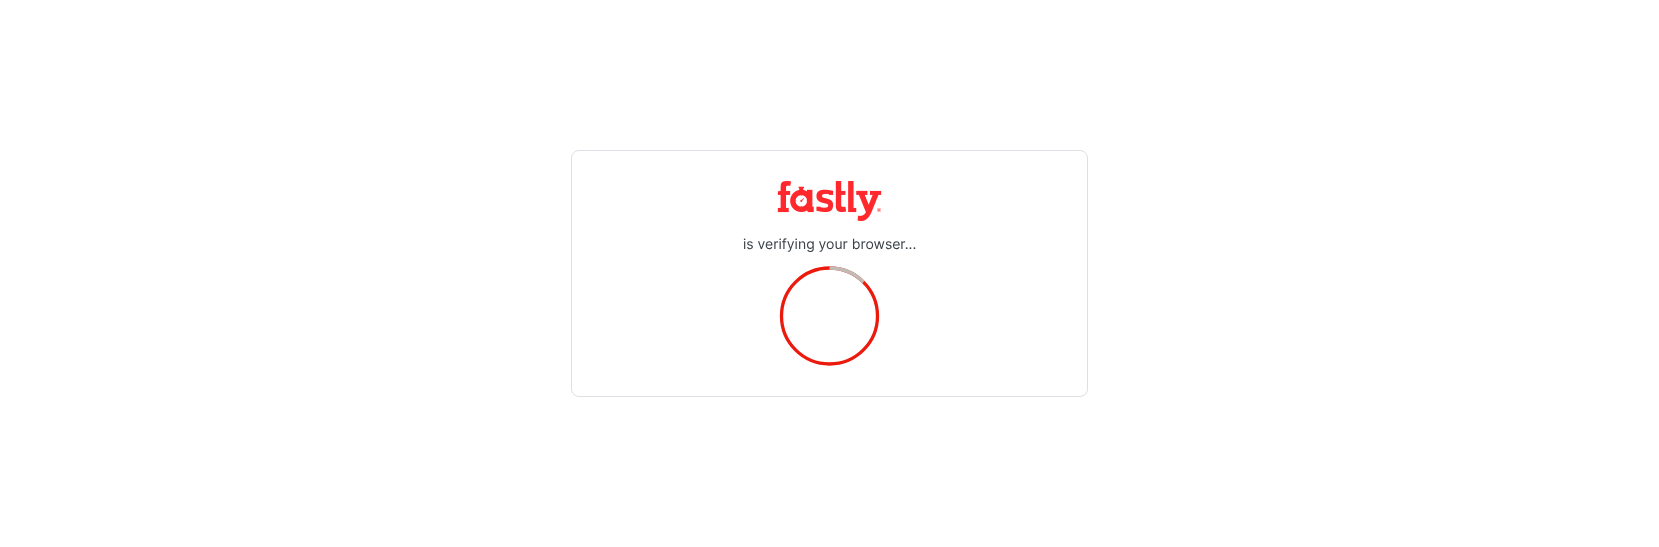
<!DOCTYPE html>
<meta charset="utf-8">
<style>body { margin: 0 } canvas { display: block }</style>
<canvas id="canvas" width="1659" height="547"></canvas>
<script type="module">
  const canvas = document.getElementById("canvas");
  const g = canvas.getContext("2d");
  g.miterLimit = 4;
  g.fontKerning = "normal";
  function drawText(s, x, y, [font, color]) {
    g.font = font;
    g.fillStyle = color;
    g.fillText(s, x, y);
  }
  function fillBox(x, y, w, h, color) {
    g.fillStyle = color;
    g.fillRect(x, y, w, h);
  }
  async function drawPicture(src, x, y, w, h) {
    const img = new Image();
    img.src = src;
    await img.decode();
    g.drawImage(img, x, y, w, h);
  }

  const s1 = ["14px Inter", "#3A424A"];

  fillBox(0, 0, 1659, 547, "#FFFFFF");
  g.beginPath();
  g.roundRect(571.5, 150.5, 516, 246, 7.5);
  g.strokeStyle = "#DCE0E4";
  g.stroke();
  await drawPicture("pic1.png", 777, 181, 105, 40);
  drawText("is verifying your browser...", 743, 249, s1);
  g.beginPath();
  g.moveTo(781.5, 316);
  g.bezierCurveTo(781.5, 289.5, 803, 268, 829.5, 268);
  g.bezierCurveTo(856, 268, 877.5, 289.5, 877.5, 316);
  g.bezierCurveTo(877.5, 342.5, 856, 364, 829.5, 364);
  g.bezierCurveTo(803, 364, 781.5, 342.5, 781.5, 316);
  g.closePath();
  g.strokeStyle = "#EB1A0C";
  g.lineWidth = 3.3;
  g.stroke();
  g.beginPath();
  g.moveTo(863.5, 282);
  g.bezierCurveTo(854.5, 273, 842, 268, 829.5, 268);
  g.strokeStyle = "#C2BAB5";
  g.stroke();
</script>
